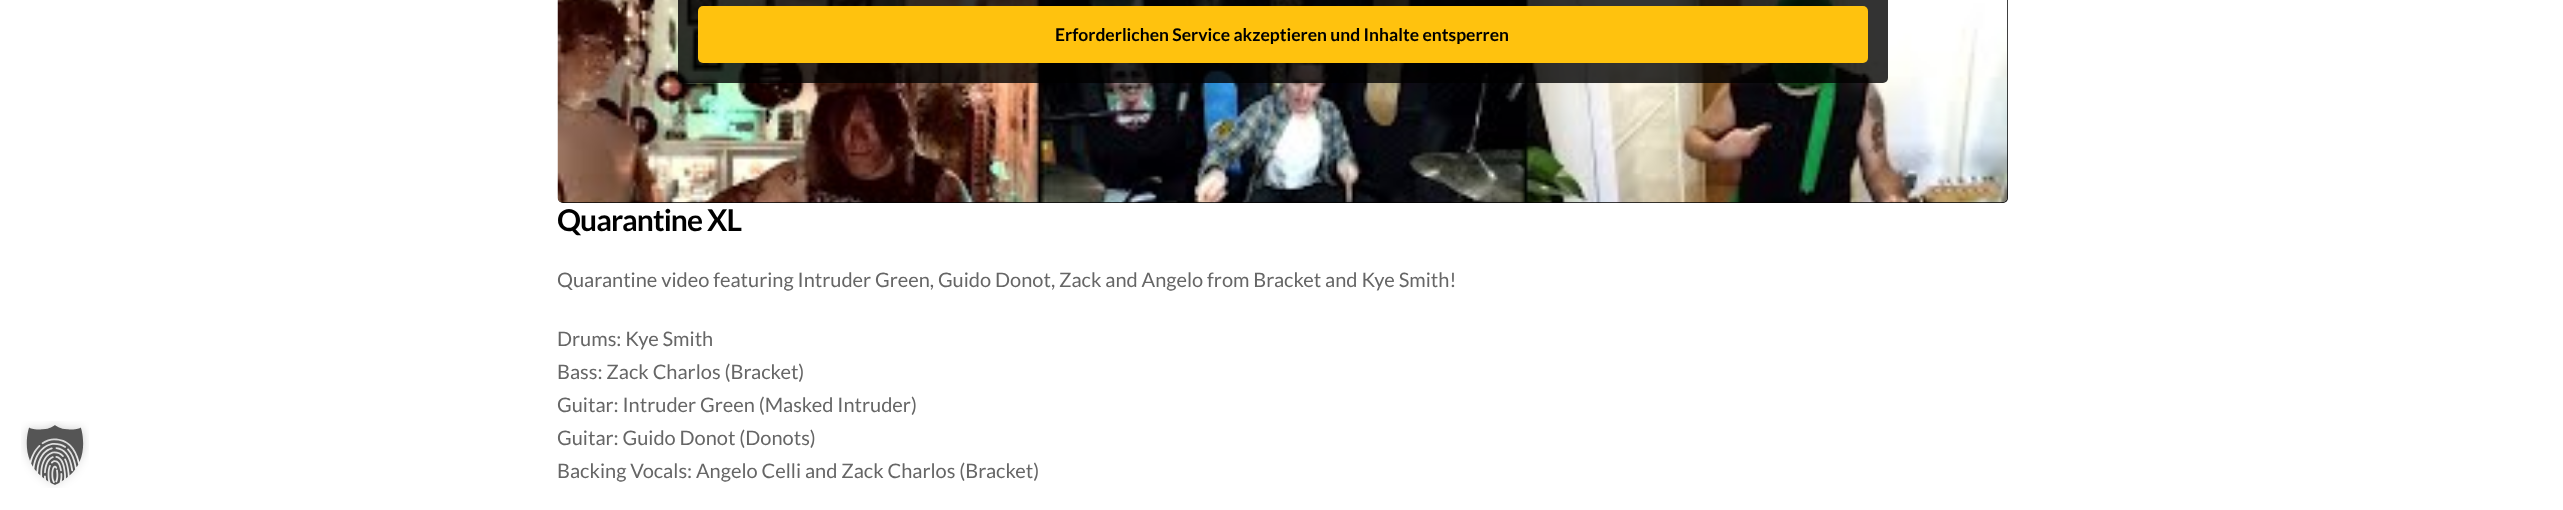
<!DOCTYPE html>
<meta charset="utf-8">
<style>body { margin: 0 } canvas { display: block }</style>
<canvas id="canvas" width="2563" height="510"></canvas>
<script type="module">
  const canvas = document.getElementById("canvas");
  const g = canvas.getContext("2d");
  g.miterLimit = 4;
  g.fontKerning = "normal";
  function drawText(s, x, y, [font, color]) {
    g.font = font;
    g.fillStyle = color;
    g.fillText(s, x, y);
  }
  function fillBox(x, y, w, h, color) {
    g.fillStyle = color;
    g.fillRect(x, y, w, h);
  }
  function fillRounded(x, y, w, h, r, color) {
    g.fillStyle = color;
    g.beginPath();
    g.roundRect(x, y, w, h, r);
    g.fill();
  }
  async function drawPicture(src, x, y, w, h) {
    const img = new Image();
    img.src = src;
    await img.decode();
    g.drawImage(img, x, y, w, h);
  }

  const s1 = ["bold 17.5px Lato", "#000000"];
  const s2 = ["bold 30px Lato", "#000000"];
  const s3 = ["20px Lato", "#666666"];

  fillBox(0, 0, 2563, 510, "#FFFFFF");
  await drawPicture("pic1.png", 21, 421, 68, 67);
  fillRounded(558, -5, 1450, 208, 5, "#000000");
  await drawPicture("pic2.png", 557, 0, 1451, 203);
  fillRounded(678, -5, 1210, 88, 5, "rgba(0, 0, 0, 0.8)");
  fillRounded(698, 6, 1170, 57, 5, "#FFC20E");
  drawText("Erforderlichen Service akzeptieren und Inhalte entsperren", 1055, 41, s1);
  g.letterSpacing = "-0.9px";
  drawText("Quarantine XL", 557, 231, s2);
  g.letterSpacing = "0px";
  drawText("Quarantine video featuring Intruder Green, Guido Donot, Zack and Angelo from Bracket and Kye Smith!", 557, 287, s3);
  drawText("Drums: Kye Smith", 557, 346, s3);
  drawText("Bass: Zack Charlos (Bracket)", 557, 379, s3);
  drawText("Guitar: Intruder Green (Masked Intruder)", 557, 412, s3);
  drawText("Guitar: Guido Donot (Donots)", 557, 445, s3);
  drawText("Backing Vocals: Angelo Celli and Zack Charlos (Bracket)", 557, 478, s3);
</script>
